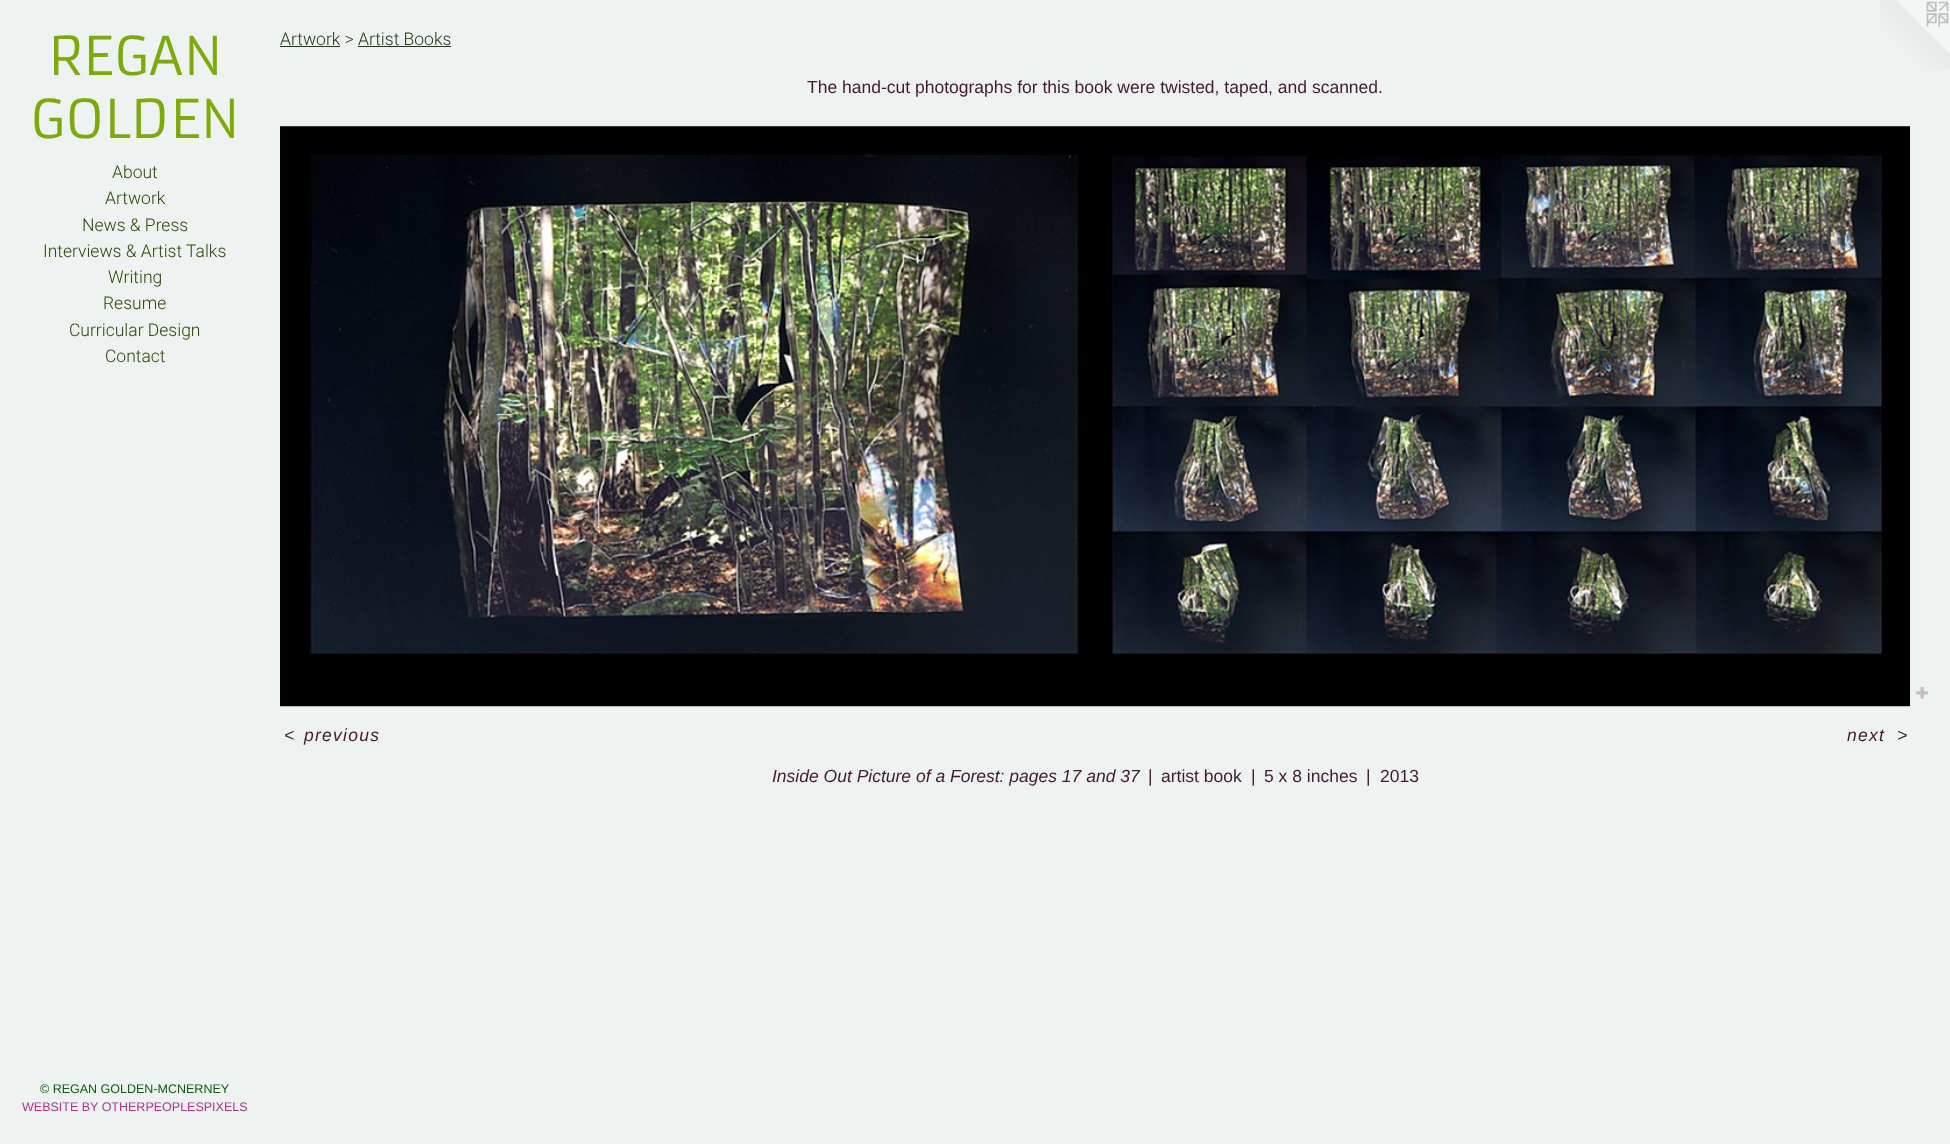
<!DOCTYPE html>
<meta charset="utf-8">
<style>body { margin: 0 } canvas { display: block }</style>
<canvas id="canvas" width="1950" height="1144"></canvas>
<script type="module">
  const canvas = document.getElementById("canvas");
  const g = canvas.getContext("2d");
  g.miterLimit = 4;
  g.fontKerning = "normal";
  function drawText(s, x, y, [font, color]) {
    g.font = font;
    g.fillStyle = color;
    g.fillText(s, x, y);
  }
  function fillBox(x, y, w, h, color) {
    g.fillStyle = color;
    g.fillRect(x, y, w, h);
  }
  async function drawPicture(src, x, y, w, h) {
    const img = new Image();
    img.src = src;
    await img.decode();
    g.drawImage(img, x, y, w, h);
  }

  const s1 = ["52.5px Armata", "#7CAA09"];
  const s2 = ["300 17.5px Roboto", "#2E4607"];
  const s3 = ["12.5px Liberation Sans", "#095D0F"];
  const s4 = ["12.5px Liberation Sans", "#AB3791"];
  const s5 = ["300 17.5px Roboto", "#273815"];
  const s6 = ["17.5px Liberation Sans", "#421A32"];
  const s7 = ["italic 17.5px Liberation Sans", "#421A32"];

  fillBox(0, 0, 1950, 1144, "#EEF2F0");
  drawText("REGAN", 48, 75, s1);
  drawText("GOLDEN", 30, 138, s1);
  drawText("About", 112, 178, s2);
  drawText("Artwork", 105, 204, s2);
  drawText("News & Press", 82, 231, s2);
  drawText("Interviews & Artist Talks", 43, 257, s2);
  drawText("Writing", 108, 283, s2);
  drawText("Resume", 103, 309, s2);
  drawText("Curricular Design", 69, 336, s2);
  drawText("Contact", 105, 362, s2);
  drawText("© REGAN GOLDEN-MCNERNEY", 40, 1093, s3);
  drawText("WEBSITE BY OTHERPEOPLESPIXELS", 22, 1111, s4);
  drawText("Artwork > Artist Books", 280, 45, s5);
  fillBox(280, 46, 60, 1, "#273815");
  fillBox(358, 46, 93, 1, "#273815");
  drawText("The hand-cut photographs for this book were twisted, taped, and scanned.", 807, 93, s6);
  await drawPicture("pic1.png", 280, 126, 1630, 581);
  await drawPicture("pic2.png", 1916, 687, 12, 12);
  g.letterSpacing = "1.25px";
  drawText("<", 284, 741, s7);
  drawText("previous", 304, 741, s7);
  drawText("next", 1847, 741, s7);
  drawText(">", 1897, 741, s7);
  g.letterSpacing = "0px";
  drawText("Inside Out Picture of a Forest: pages 17 and 37", 772, 782, s7);
  drawText("|", 1148, 782, s6);
  drawText("artist book", 1161, 782, s6);
  drawText("|", 1251, 782, s6);
  drawText("5 x 8 inches", 1264, 782, s6);
  drawText("|", 1366, 782, s6);
  drawText("2013", 1380, 782, s6);
  await drawPicture("pic3.png", 1880, 0, 70, 70);
</script>
